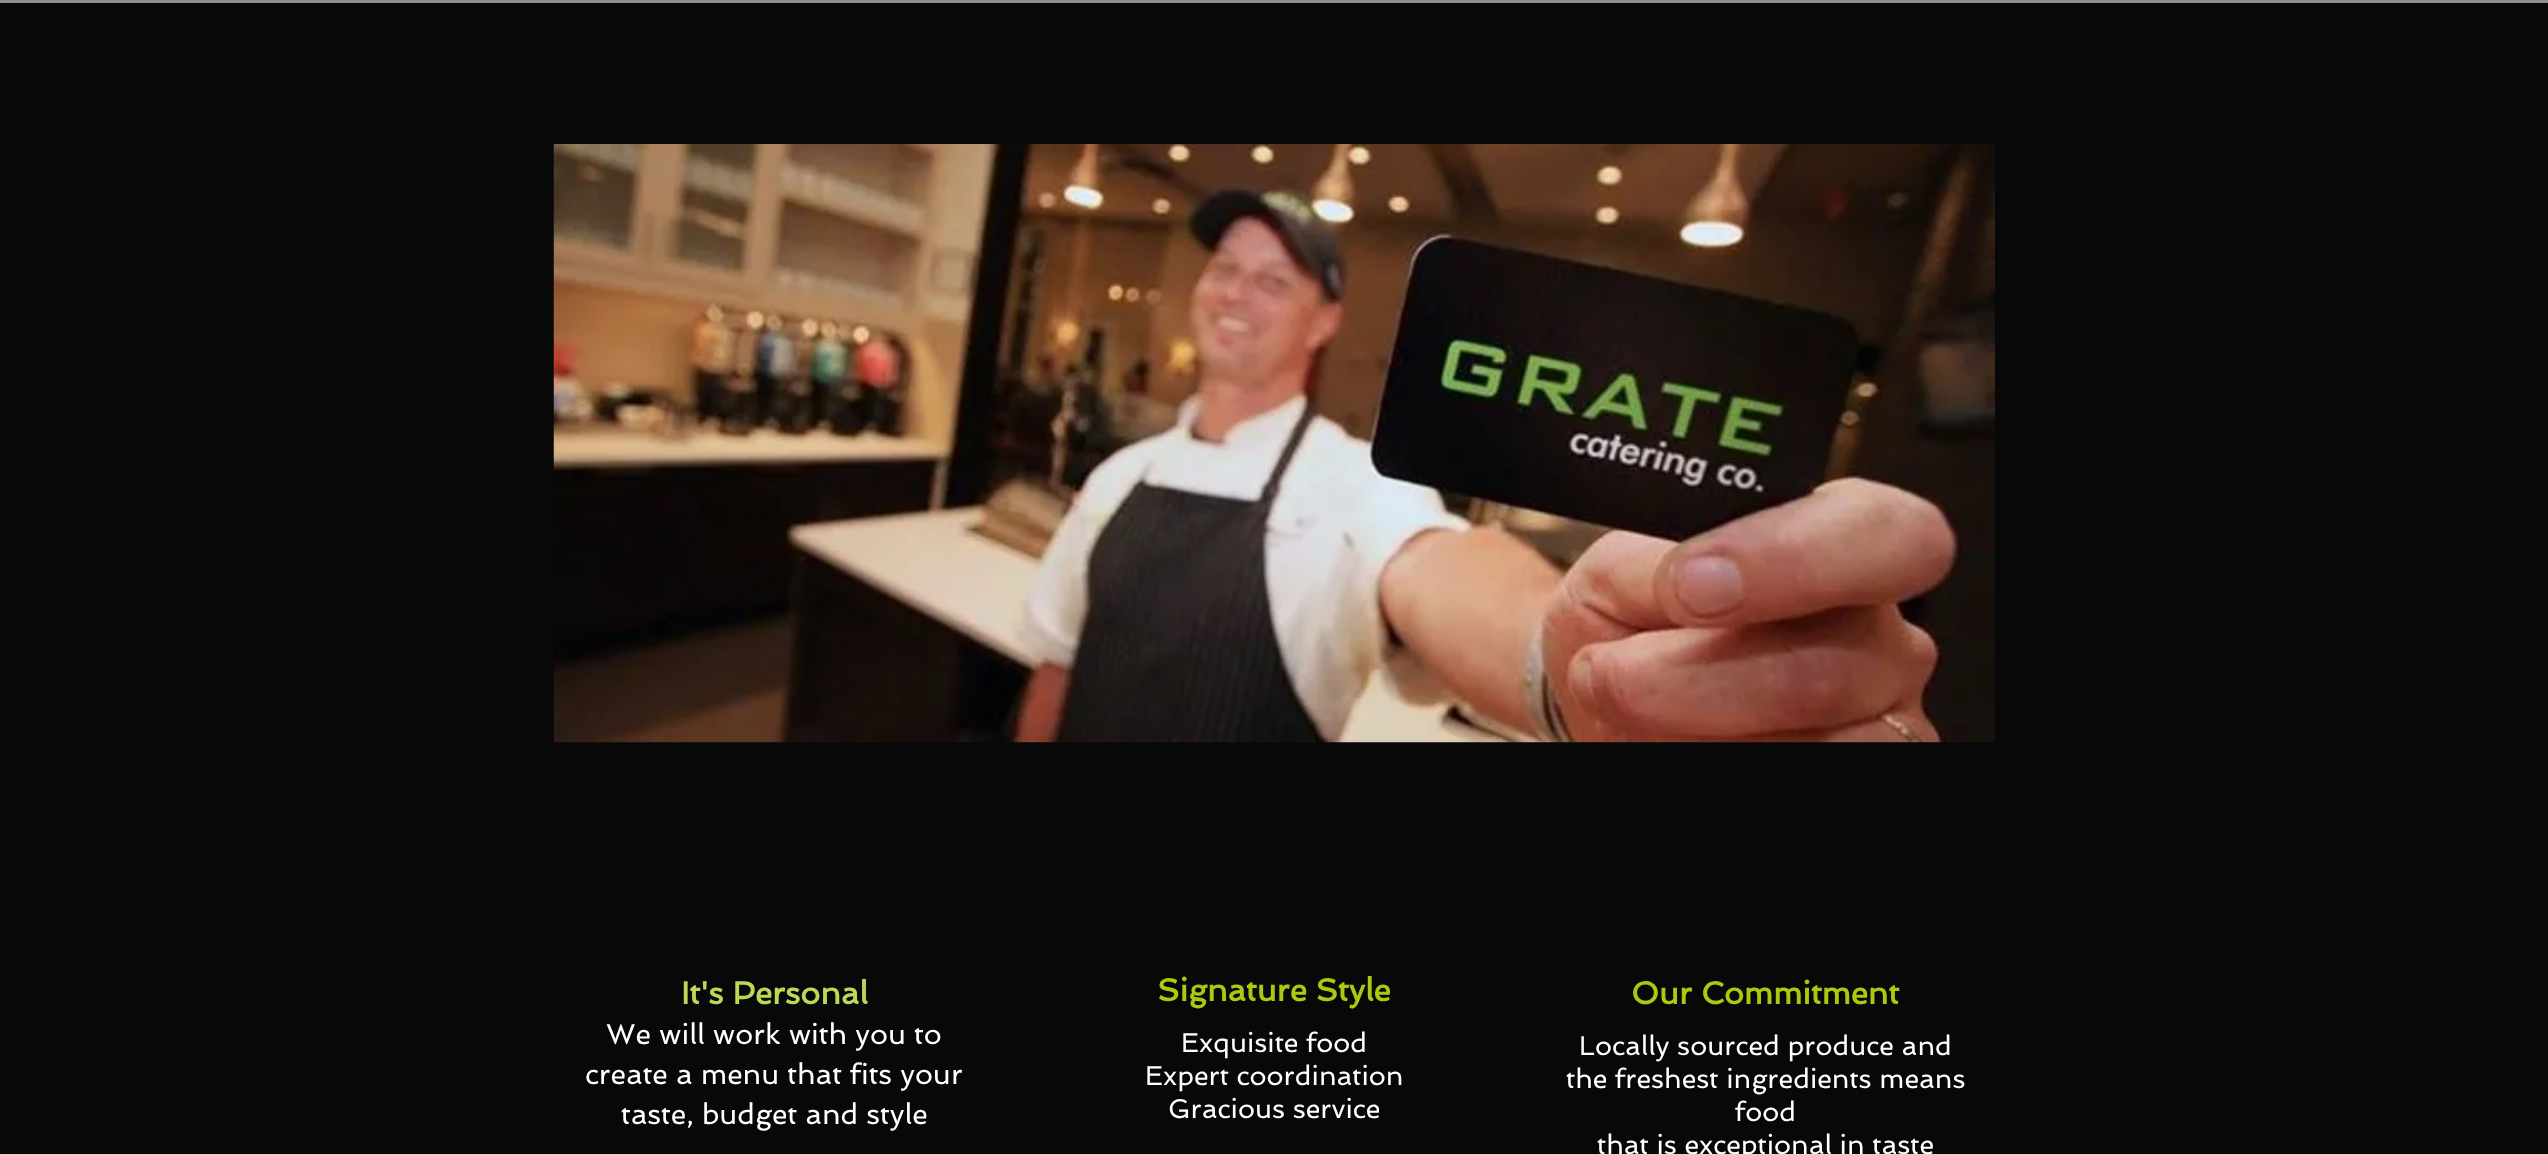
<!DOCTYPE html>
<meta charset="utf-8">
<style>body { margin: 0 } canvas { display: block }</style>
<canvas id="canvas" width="2548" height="1154"></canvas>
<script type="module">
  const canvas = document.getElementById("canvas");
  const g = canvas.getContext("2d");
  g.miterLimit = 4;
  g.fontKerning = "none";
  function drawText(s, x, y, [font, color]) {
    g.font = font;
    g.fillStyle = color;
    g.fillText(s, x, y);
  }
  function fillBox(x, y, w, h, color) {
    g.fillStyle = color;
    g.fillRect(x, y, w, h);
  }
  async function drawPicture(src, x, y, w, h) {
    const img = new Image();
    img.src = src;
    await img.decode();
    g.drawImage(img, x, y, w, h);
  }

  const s1 = ["bold 31.5px Spinnaker", "#BADA55"];
  const s2 = ["28.5px Spinnaker", "#FFFFFF"];
  const s3 = ["bold 31.5px Spinnaker", "#AACA0E"];
  const s4 = ["27px Spinnaker", "#FFFFFF"];

  fillBox(0, 0, 2548, 1154, "#080808");
  fillBox(0, 0, 2548, 3, "#918C8C");
  await drawPicture("pic1.png", 553, 144, 1442, 599);
  drawText("It's Personal", 681, 1004, s1);
  drawText("We will work with you to", 606, 1044, s2);
  drawText("create a menu that fits your", 585, 1084, s2);
  drawText("taste, budget and style", 621, 1124, s2);
  drawText("Signature Style", 1157, 1001, s3);
  drawText("Exquisite food", 1181, 1052, s4);
  drawText("Expert coordination", 1145, 1085, s4);
  drawText("Gracious service", 1168, 1118, s4);
  drawText("Our Commitment", 1631, 1004, s3);
  drawText("Locally sourced produce and", 1579, 1055, s4);
  drawText("the freshest ingredients means", 1566, 1088, s4);
  drawText("food", 1735, 1121, s4);
  drawText("that is exceptional in taste", 1597, 1154, s4);
</script>
